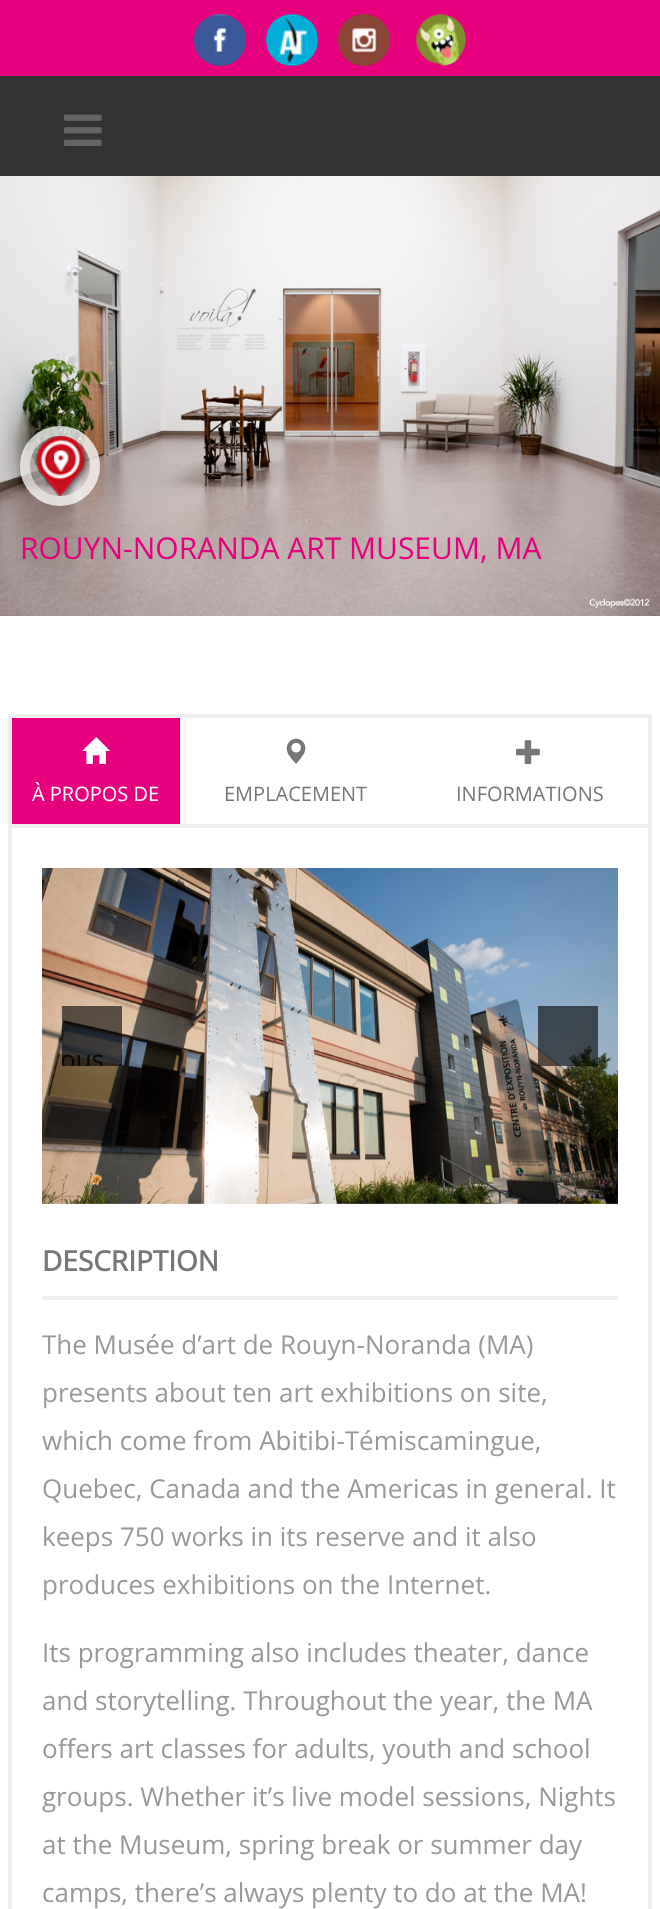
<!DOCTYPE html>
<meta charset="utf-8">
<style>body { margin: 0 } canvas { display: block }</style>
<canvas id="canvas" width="660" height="1909"></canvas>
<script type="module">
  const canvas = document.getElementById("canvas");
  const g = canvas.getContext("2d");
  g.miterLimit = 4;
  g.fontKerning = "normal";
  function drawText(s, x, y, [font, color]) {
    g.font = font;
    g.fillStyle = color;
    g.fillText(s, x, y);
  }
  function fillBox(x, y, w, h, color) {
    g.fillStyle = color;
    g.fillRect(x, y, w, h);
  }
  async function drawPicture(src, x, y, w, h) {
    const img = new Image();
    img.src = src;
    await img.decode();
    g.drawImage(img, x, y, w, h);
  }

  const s1 = ["30px Open Sans", "#E6007E"];
  const s2 = ["20px Open Sans", "#FFFFFF"];
  const s3 = ["20px Open Sans", "#777777"];
  const s4 = ["26px Open Sans", "#090806"];
  const s5 = ["bold 28px Open Sans", "#777777"];
  const s6 = ["26px Open Sans", "#999999"];

  fillBox(0, 0, 660, 1909, "#FFFFFF");
  fillBox(0, 0, 660, 76, "#E6007E");
  await drawPicture("pic1.png", 194, 14, 52, 52);
  await drawPicture("pic2.png", 266, 14, 52, 52);
  await drawPicture("pic3.png", 338, 14, 52, 52);
  await drawPicture("pic4.png", 416, 14, 50, 52);
  fillBox(0, 76, 660, 100, "#333333");
  await drawPicture("pic5.png", 64, 114, 38, 32);
  await drawPicture("pic6.png", 0, 176, 660, 440);
  g.fillStyle = "rgba(255, 255, 255, 0.5)";
  g.beginPath();
  g.arc(60, 466, 40, 0, Math.PI * 2);
  g.fill();
  g.beginPath();
  g.arc(60, 466, 35, 0, Math.PI * 2);
  g.strokeStyle = "rgba(255, 255, 255, 0.5)";
  g.lineWidth = 10;
  g.stroke();
  await drawPicture("pic7.png", 35, 436, 55, 60);
  drawText("ROUYN-NORANDA ART MUSEUM, MA", 20, 559, s1);
  g.strokeStyle = "#EEEEEE";
  g.lineWidth = 4;
  g.strokeRect(10, 716, 640, 110);
  fillBox(12, 718, 168, 106, "#E6007E");
  await drawPicture("pic8.png", 82, 737, 28, 27);
  drawText("À PROPOS DE", 32, 801, s2);
  await drawPicture("pic9.png", 286, 738, 20, 26);
  drawText("EMPLACEMENT", 224, 801, s3);
  await drawPicture("pic10.png", 516, 740, 24, 24);
  drawText("INFORMATIONS", 456, 801, s3);
  fillBox(648, 828, 4, 1081, "#EEEEEE");
  fillBox(8, 828, 4, 1081, "#EEEEEE");
  await drawPicture("pic11.png", 42, 868, 576, 336);
  fillBox(62, 1006, 60, 60, "rgba(0, 0, 0, 0.6)");
  g.save();
  g.beginPath();
  g.rect(62, 1006, 60, 60);
  g.clip();
  drawText("ous", 60, 1069, s4);
  g.restore();
  fillBox(538, 1006, 60, 60, "rgba(0, 0, 0, 0.6)");
  fillBox(42, 1296, 576, 4, "#EEEEEE");
  drawText("DESCRIPTION", 42, 1271, s5);
  drawText("The Musée d’art de Rouyn-Noranda (MA)", 42, 1354, s6);
  drawText("presents about ten art exhibitions on site,", 42, 1402, s6);
  drawText("which come from Abitibi-Témiscamingue,", 42, 1450, s6);
  drawText("Quebec, Canada and the Americas in general. It", 42, 1498, s6);
  drawText("keeps 750 works in its reserve and it also", 42, 1546, s6);
  drawText("produces exhibitions on the Internet.", 42, 1594, s6);
  drawText("Its programming also includes theater, dance", 42, 1662, s6);
  drawText("and storytelling. Throughout the year, the MA", 42, 1710, s6);
  drawText("offers art classes for adults, youth and school", 42, 1758, s6);
  drawText("groups. Whether it’s live model sessions, Nights", 42, 1806, s6);
  drawText("at the Museum, spring break or summer day", 42, 1854, s6);
  drawText("camps, there’s always plenty to do at the MA!", 42, 1902, s6);
</script>
